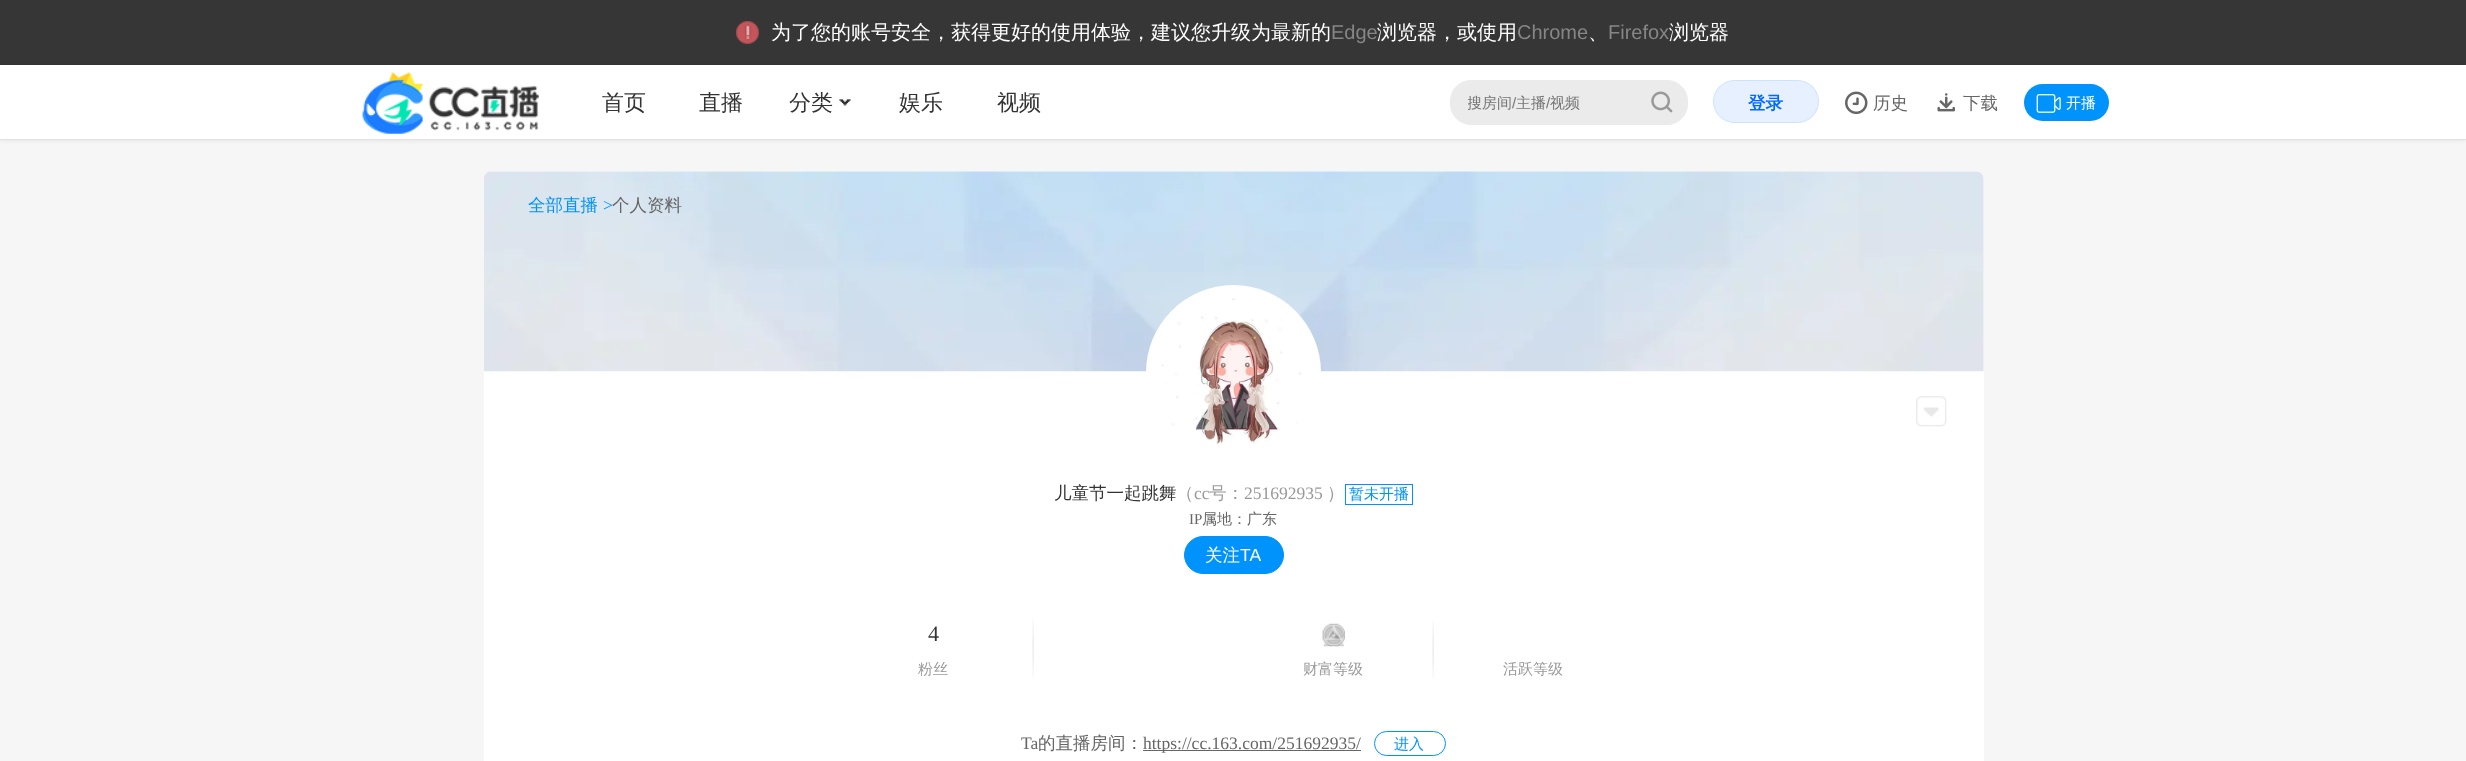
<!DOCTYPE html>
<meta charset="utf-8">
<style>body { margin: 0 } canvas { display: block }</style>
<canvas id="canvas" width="2466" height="761"></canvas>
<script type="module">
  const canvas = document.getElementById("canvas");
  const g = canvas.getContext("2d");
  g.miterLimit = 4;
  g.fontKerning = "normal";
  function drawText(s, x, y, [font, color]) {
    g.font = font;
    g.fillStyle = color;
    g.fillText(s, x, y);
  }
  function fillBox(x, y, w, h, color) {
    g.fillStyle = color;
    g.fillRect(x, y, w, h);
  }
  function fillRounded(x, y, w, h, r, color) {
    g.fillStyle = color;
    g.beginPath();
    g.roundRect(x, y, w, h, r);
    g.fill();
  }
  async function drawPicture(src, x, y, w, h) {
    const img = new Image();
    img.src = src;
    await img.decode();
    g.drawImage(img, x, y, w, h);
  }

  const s1 = ["500 20px WenQuanYi Zen Hei", "#FFFFFF"];
  const s2 = ["20px Liberation Sans", "#868686"];
  const s3 = ["500 22px WenQuanYi Zen Hei", "#333333"];
  const s4 = ["500 15px WenQuanYi Zen Hei", "#757575"];
  const s5 = ["15px Liberation Sans", "#757575"];
  const s6 = ["bold 17.5px WenQuanYi Zen Hei", "#0069FF"];
  const s7 = ["500 17.5px WenQuanYi Zen Hei", "#666666"];
  const s8 = ["500 15px WenQuanYi Zen Hei", "#FFFFFF"];
  const s9 = ["500 17.5px WenQuanYi Zen Hei", "#0093FB"];
  const s10 = ["17.5px Liberation Serif", "#0093FB"];
  const s11 = ["500 17.5px WenQuanYi Zen Hei", "#333333"];
  const s12 = ["500 17.5px WenQuanYi Zen Hei", "#999999"];
  const s13 = ["17.5px Liberation Serif", "#999999"];
  const s14 = ["500 15px WenQuanYi Zen Hei", "#0093FB"];
  const s15 = ["15px Liberation Serif", "#666666"];
  const s16 = ["500 15px WenQuanYi Zen Hei", "#666666"];
  const s17 = ["500 17.5px WenQuanYi Zen Hei", "#FFFFFF"];
  const s18 = ["17.5px Liberation Sans", "#FFFFFF"];
  const s19 = ["22px Liberation Serif", "#333333"];
  const s20 = ["500 15px WenQuanYi Zen Hei", "#999999"];
  const s21 = ["17.5px Liberation Serif", "#666666"];

  fillBox(0, 0, 2466, 761, "#F6F6F6");
  fillBox(0, 0, 2466, 65, "#363636");
  await drawPicture("pic1.png", 736, 21, 23, 23);
  drawText("为了您的账号安全，获得更好的使用体验，建议您升级为最新的", 771, 39, s1);
  drawText("Edge", 1331, 39, s2);
  drawText("浏览器，或使用", 1377, 39, s1);
  drawText("Chrome", 1517, 39, s2);
  drawText("、", 1588, 39, s1);
  drawText("Firefox", 1608, 39, s2);
  drawText("浏览器", 1669, 39, s1);
  g.fillStyle = "rgba(0, 0, 0, 0.09)";
  g.filter = "blur(2.5px)";
  g.beginPath();
  g.rect(0, 65, 2466, 75);
  g.fill();
  g.filter = "none";
  fillBox(0, 65, 2466, 74, "#FFFFFF");
  fillBox(0, 139, 2466, 1, "#E2E1E2");
  await drawPicture("pic2.png", 362, 72, 177, 62);
  drawText("首页", 602, 110, s3);
  drawText("直播", 699, 110, s3);
  drawText("分类", 789, 110, s3);
  await drawPicture("pic3.png", 839, 99, 12, 7);
  drawText("娱乐", 899, 110, s3);
  drawText("视频", 997, 110, s3);
  g.fillStyle = "#ECEBEB";
  g.beginPath();
  g.roundRect(1450.5, 80.5, 237, 44, 20.5);
  g.fill();
  g.strokeStyle = "#ECEBEB";
  g.stroke();
  g.save();
  g.beginPath();
  g.rect(1468, 93, 175, 21);
  g.clip();
  drawText("搜房间", 1467, 108, s4);
  g.restore();
  drawText("/", 1512, 108, s5);
  drawText("主播", 1516, 108, s4);
  drawText("/", 1546, 108, s5);
  drawText("视频", 1550, 108, s4);
  await drawPicture("pic4.png", 1651, 91, 22, 22);
  fillRounded(1713, 80, 106, 43, 21.5, "#E6F0FF");
  g.beginPath();
  g.roundRect(1713.5, 80.5, 105, 42, 21);
  g.strokeStyle = "rgba(0, 105, 255, 0.1)";
  g.stroke();
  drawText("登录", 1748, 109, s6);
  await drawPicture("pic5.png", 1845, 91, 23, 24);
  drawText("历史", 1873, 109, s7);
  await drawPicture("pic6.png", 1937, 93, 18, 19);
  drawText("下载", 1963, 109, s7);
  fillRounded(2024, 84, 85, 37, 18.5, "#0093FB");
  await drawPicture("pic7.png", 2036, 94, 25, 19);
  drawText("开播", 2066, 108, s8);
  fillRounded(484, 171, 1500, 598, 8, "#FFFFFF");
  await drawPicture("pic8.png", 484, 171, 1500, 201);
  drawText("全部直播", 528, 211, s9);
  drawText(">", 603, 211, s10);
  drawText("个人资料", 612, 211, s7);
  await drawPicture("pic9.png", 1916, 396, 31, 31);
  g.fillStyle = "#FFFFFF";
  g.beginPath();
  g.arc(1233.5, 372.5, 87.5, 0, Math.PI * 2);
  g.fill();
  await drawPicture("pic10.png", 1161, 298, 141, 147);
  drawText("儿童节一起跳舞", 1054, 499, s11);
  drawText("（", 1176, 499, s12);
  drawText("cc", 1194, 499, s13);
  drawText("号：", 1209, 499, s12);
  drawText("251692935", 1244, 499, s13);
  drawText("）", 1327, 499, s12);
  g.strokeStyle = "#0093FB";
  g.strokeRect(1345.5, 484.5, 67, 20);
  drawText("暂未开播", 1349, 499, s14);
  drawText("IP", 1189, 524, s15);
  drawText("属地：广东", 1202, 524, s16);
  g.fillStyle = "#0093FB";
  g.beginPath();
  g.roundRect(1184.5, 536.5, 99, 37, 18.5);
  g.fill();
  g.stroke();
  drawText("关注", 1205, 561, s17);
  drawText("TA", 1240, 561, s18);
  await drawPicture("pic11.png", 1032, 618, 2, 61);
  drawText("4", 928, 641, s19);
  drawText("粉丝", 918, 674, s20);
  await drawPicture("pic12.png", 1432, 621, 2, 57);
  await drawPicture("pic13.png", 1322, 623, 23, 24);
  drawText("财富等级", 1303, 674, s20);
  drawText("活跃等级", 1503, 674, s20);
  drawText("Ta", 1021, 749, s21);
  drawText("的直播房间：", 1038, 749, s7);
  fillBox(1143, 750, 218, 1, "#666666");
  drawText("https://cc.163.com/251692935/", 1143, 749, s21);
  g.beginPath();
  g.roundRect(1374.5, 731.5, 71, 24, 12);
  g.stroke();
  drawText("进入", 1394, 749, s14);
</script>
